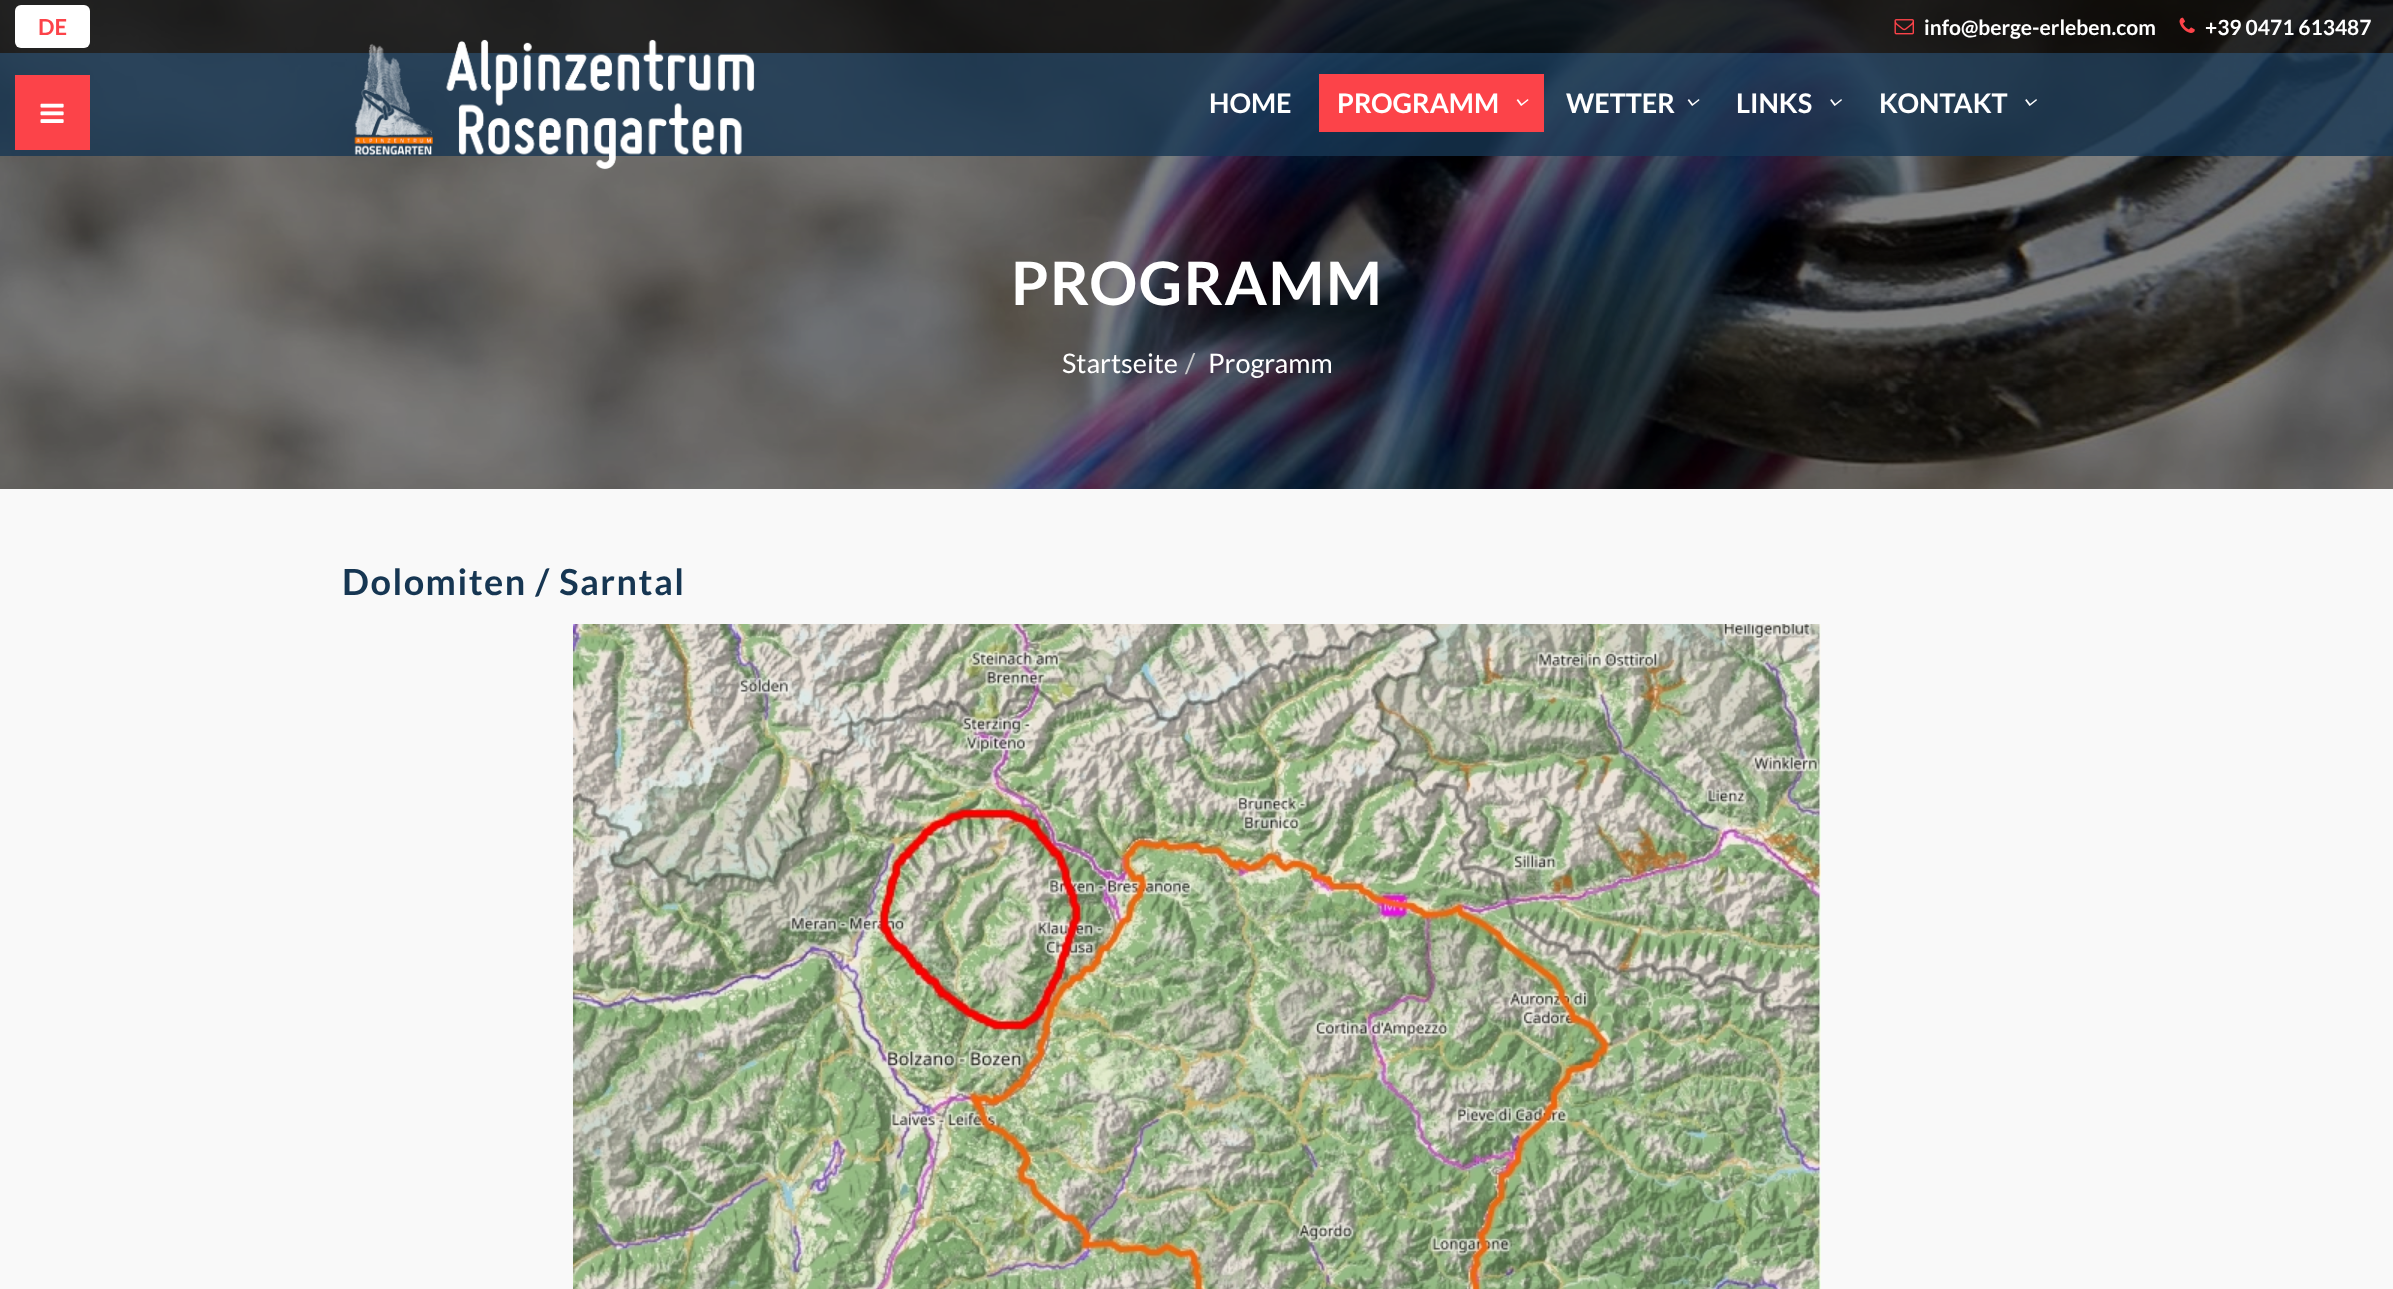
<!DOCTYPE html>
<meta charset="utf-8">
<style>body { margin: 0 } canvas { display: block }</style>
<canvas id="canvas" width="2393" height="1289"></canvas>
<script type="module">
  const canvas = document.getElementById("canvas");
  const g = canvas.getContext("2d");
  g.miterLimit = 4;
  g.fontKerning = "normal";
  function drawText(s, x, y, [font, color]) {
    g.font = font;
    g.fillStyle = color;
    g.fillText(s, x, y);
  }
  function fillBox(x, y, w, h, color) {
    g.fillStyle = color;
    g.fillRect(x, y, w, h);
  }
  function fillRounded(x, y, w, h, r, color) {
    g.fillStyle = color;
    g.beginPath();
    g.roundRect(x, y, w, h, r);
    g.fill();
  }
  async function drawPicture(src, x, y, w, h) {
    const img = new Image();
    img.src = src;
    await img.decode();
    g.drawImage(img, x, y, w, h);
  }

  const s1 = ["bold 22px Lato", "#FC4349"];
  const s2 = ["bold 21px Lato", "#FFFFFF"];
  const s3 = ["bold 27px Lato", "#FFFFFF"];
  const s4 = ["bold 60px Lato", "#FFFFFF"];
  const s5 = ["27px Lato", "#FFFFFF"];
  const s6 = ["27px Lato", "#CCCCCC"];
  const s7 = ["bold 36px Lato", "#163652"];

  fillBox(0, 0, 2393, 1289, "#F9F9F9");
  await drawPicture("pic9.png", 0, 0, 2393, 489);
  fillBox(0, 0, 2393, 53, "rgba(0, 0, 0, 0.7)");
  fillRounded(15, 5, 75, 43, 6, "#FFFFFF");
  drawText("DE", 38, 35, s1);
  await drawPicture("pic1.png", 1894, 19, 20, 16);
  drawText("info@berge-erleben.com", 1924, 35, s2);
  await drawPicture("pic2.png", 2179, 17, 16, 16);
  drawText("+39 0471 613487", 2205, 35, s2);
  fillBox(0, 53, 2393, 103, "rgba(22, 54, 82, 0.8)");
  fillBox(15, 75, 75, 75, "#FC4349");
  await drawPicture("pic3.png", 40, 103, 24, 20);
  await drawPicture("pic4.png", 354, 39, 401, 131);
  drawText("HOME", 1209, 113, s3);
  fillBox(1319, 74, 225, 58, "#FC4349");
  drawText("PROGRAMM", 1337, 113, s3);
  await drawPicture("pic5.png", 1516, 99, 13, 7);
  drawText("WETTER", 1566, 113, s3);
  await drawPicture("pic6.png", 1687, 99, 13, 7);
  drawText("LINKS", 1736, 113, s3);
  await drawPicture("pic7.png", 1830, 99, 12, 7);
  drawText("KONTAKT", 1879, 113, s3);
  await drawPicture("pic8.png", 2025, 99, 12, 7);
  g.letterSpacing = "1.5px";
  drawText("PROGRAMM", 1011, 305, s4);
  g.letterSpacing = "0px";
  drawText("Startseite", 1062, 373, s5);
  drawText("/", 1185, 373, s6);
  drawText("Programm", 1208, 373, s5);
  g.letterSpacing = "1.5px";
  drawText("Dolomiten / Sarntal", 342, 595, s7);
  await drawPicture("pic10.png", 573, 624, 1248, 665);
</script>
